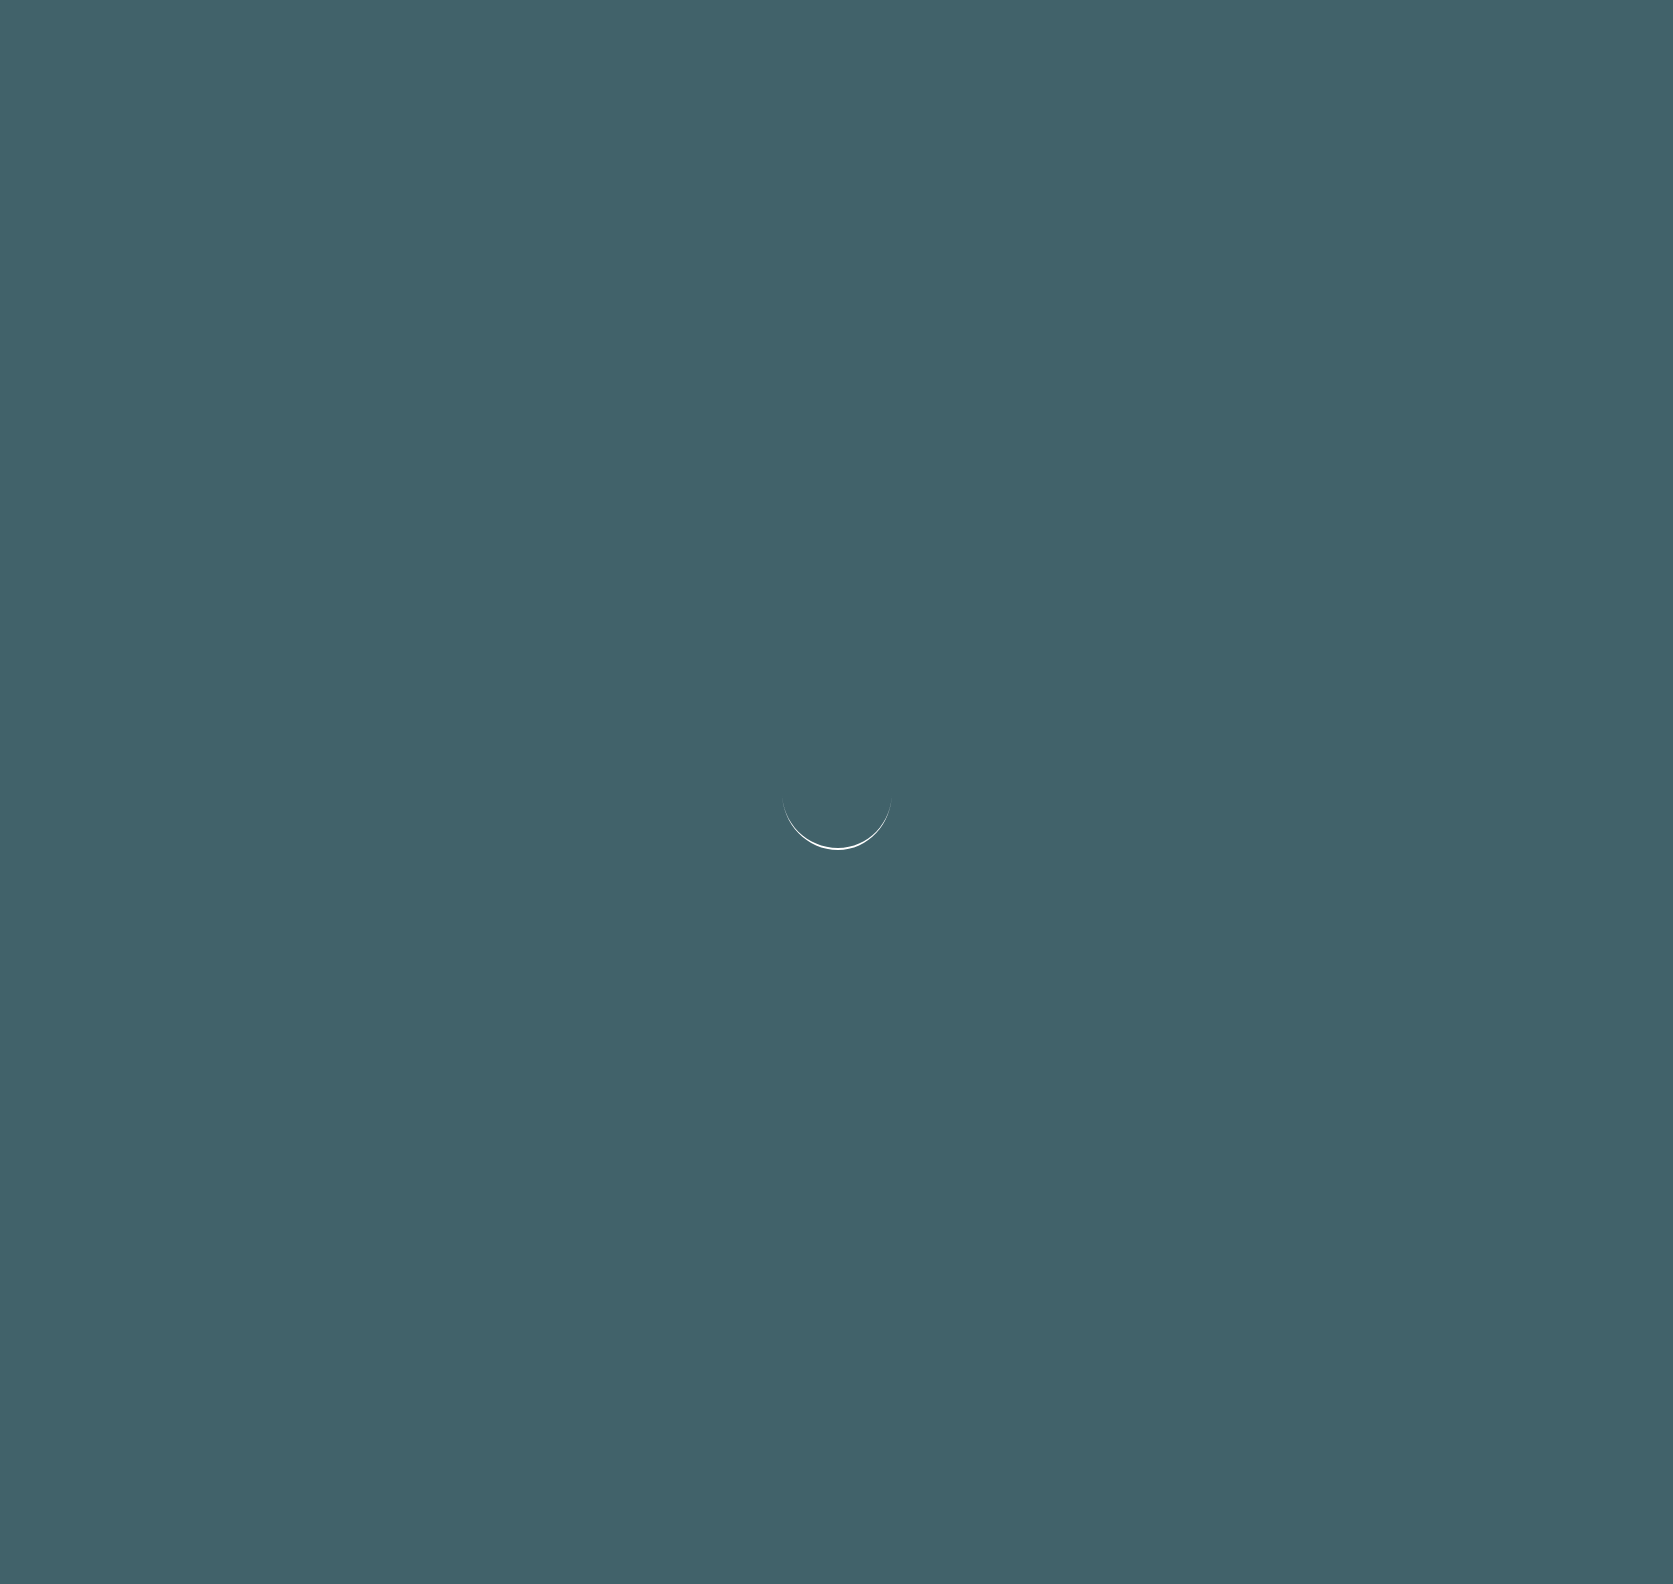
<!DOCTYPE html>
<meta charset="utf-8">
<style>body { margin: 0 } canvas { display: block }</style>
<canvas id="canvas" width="1673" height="1584"></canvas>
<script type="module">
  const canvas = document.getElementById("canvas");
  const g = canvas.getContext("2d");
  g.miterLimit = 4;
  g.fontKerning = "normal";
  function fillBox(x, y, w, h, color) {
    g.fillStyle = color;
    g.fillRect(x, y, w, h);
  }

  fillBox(0, 0, 1673, 1584, "#41626A");
  g.fillStyle = "#FFFFFF";
  g.beginPath();
  g.moveTo(782, 792);
  g.bezierCurveTo(782, 823, 807, 848, 838, 848);
  g.bezierCurveTo(868, 848, 892, 823, 892, 792);
  g.bezierCurveTo(892, 824, 868, 850, 838, 850);
  g.bezierCurveTo(807, 850, 782, 824, 782, 792);
  g.fill();
</script>
